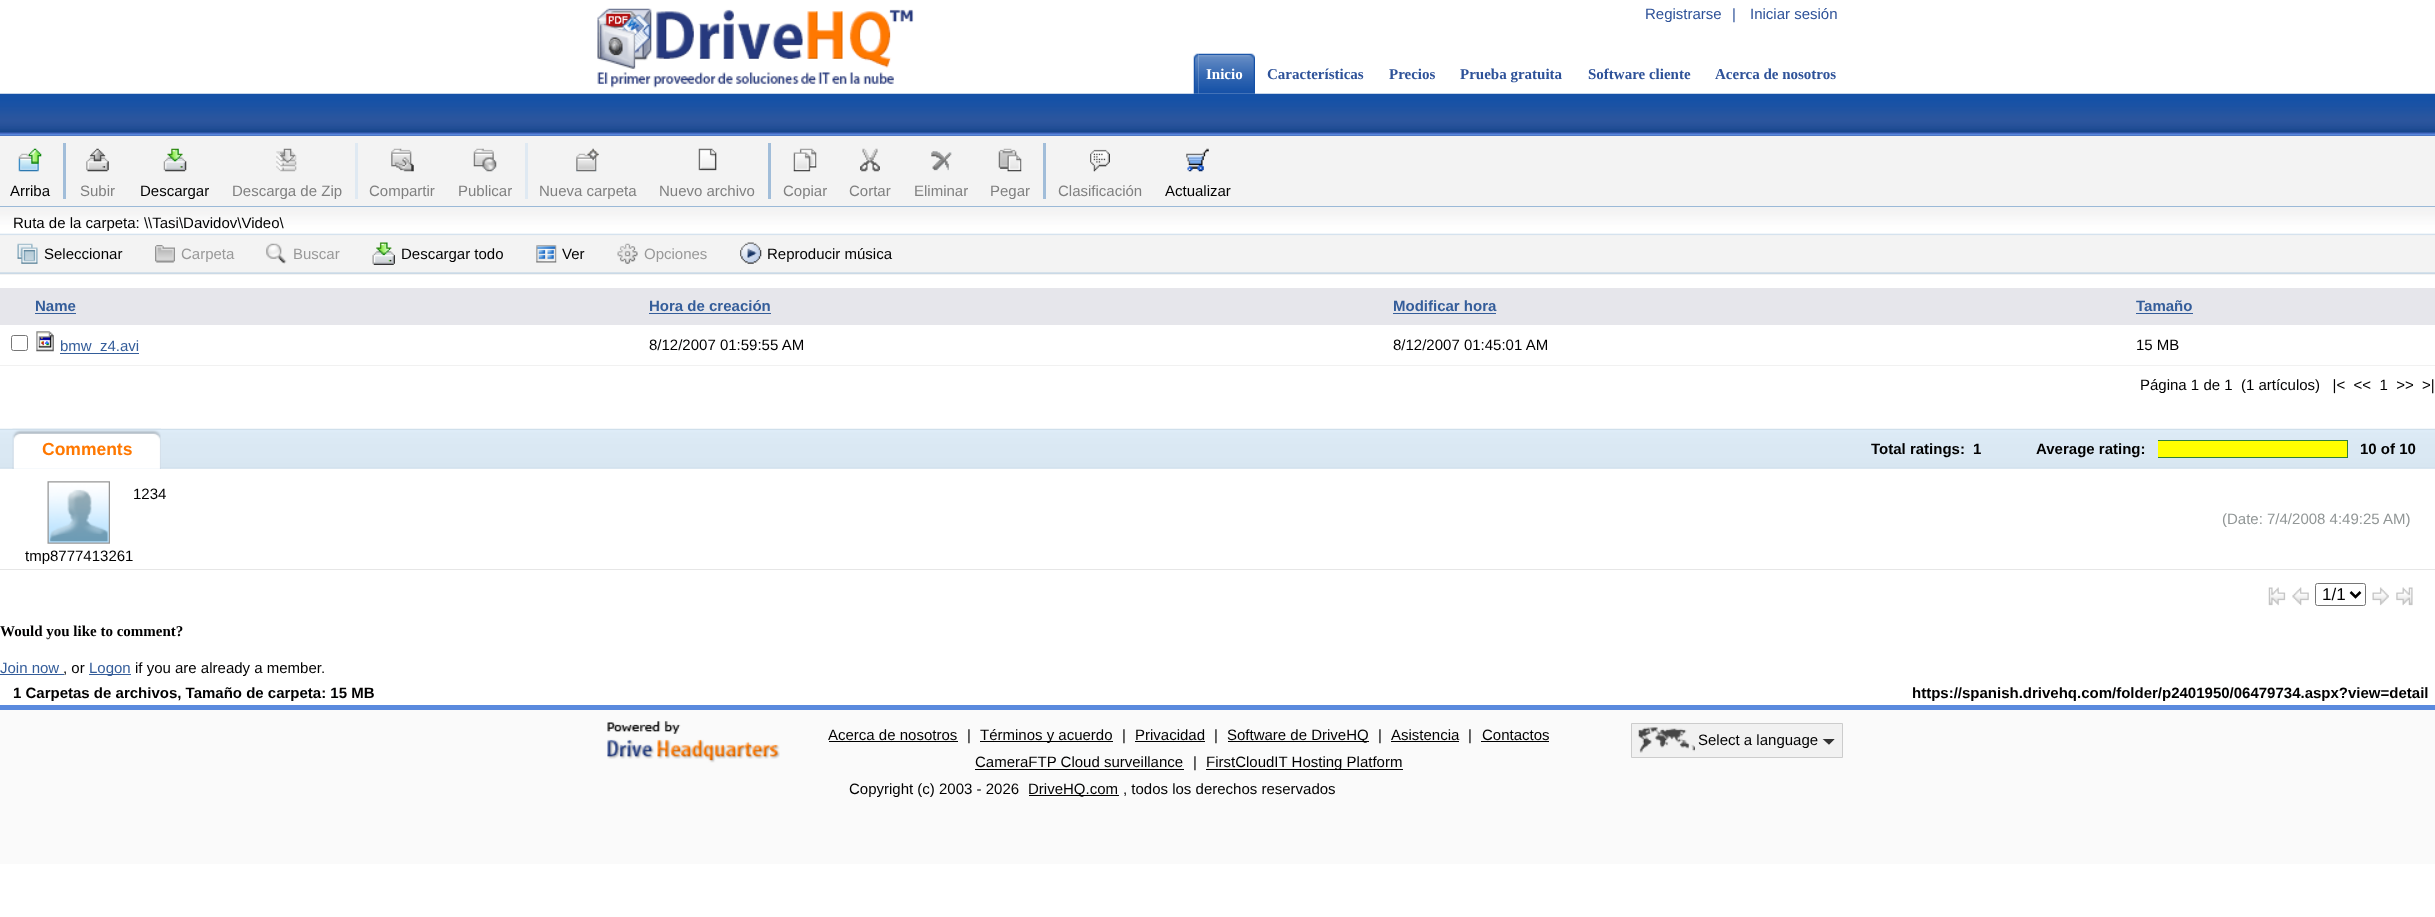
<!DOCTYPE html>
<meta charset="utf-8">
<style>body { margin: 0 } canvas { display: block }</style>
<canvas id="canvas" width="2435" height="917"></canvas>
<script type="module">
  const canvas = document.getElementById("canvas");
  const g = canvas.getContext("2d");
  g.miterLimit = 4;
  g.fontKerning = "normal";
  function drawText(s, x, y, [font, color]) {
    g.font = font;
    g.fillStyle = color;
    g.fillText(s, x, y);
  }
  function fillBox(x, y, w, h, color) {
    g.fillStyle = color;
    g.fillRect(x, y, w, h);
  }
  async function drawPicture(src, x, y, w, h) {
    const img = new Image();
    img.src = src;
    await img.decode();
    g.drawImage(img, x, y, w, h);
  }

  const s1 = ["15px Liberation Sans", "#2E5299"];
  const s2 = ["bold 15px Liberation Serif", "#FFFFFF"];
  const s3 = ["bold 15px Liberation Serif", "#2E5299"];
  const s4 = ["15px Liberation Sans", "#010000"];
  const s5 = ["15px Liberation Sans", "#808080"];
  const s6 = ["15px Liberation Sans", "#999999"];
  const s7 = ["bold 15px Liberation Sans", "#345D9A"];
  const s8 = ["15px Liberation Sans", "#345D9A"];
  const s9 = ["bold 17.5px Liberation Sans", "#FF7800"];
  const s10 = ["bold 15px Liberation Sans", "#010000"];
  const s11 = ["15px Liberation Sans", "#919696"];
  const s12 = ["17px Liberation Sans", "#010000"];
  const s13 = ["bold 15px Liberation Serif", "#010000"];

  fillBox(0, 0, 2435, 917, "#FFFFFF");
  await drawPicture("pic1.png", 0, 93, 2435, 43);
  await drawPicture("pic2.png", 597, 8, 317, 80);
  drawText("Registrarse", 1645, 19, s1);
  drawText("|", 1732, 19, s1);
  drawText("Iniciar sesión", 1750, 19, s1);
  await drawPicture("pic3.png", 1193, 53, 6, 41);
  await drawPicture("pic4.png", 1198, 53, 57, 41);
  drawText("Inicio", 1206, 79, s2);
  drawText("Características", 1267, 79, s3);
  drawText("Precios", 1389, 79, s3);
  drawText("Prueba gratuita", 1460, 79, s3);
  drawText("Software cliente", 1588, 79, s3);
  drawText("Acerca de nosotros", 1715, 79, s3);
  fillBox(0, 136, 2435, 72, "#F3F3F3");
  fillBox(0, 206, 2435, 1, "#9BB9D7");
  await drawPicture("pic5.png", 18, 148, 24, 24);
  drawText("Arriba", 10, 196, s4);
  fillBox(63, 143, 3, 56, "#A1BDD9");
  await drawPicture("pic6.png", 86, 148, 23, 24);
  drawText("Subir", 80, 196, s5);
  await drawPicture("pic7.png", 163, 148, 24, 24);
  drawText("Descargar", 140, 196, s4);
  await drawPicture("pic8.png", 276, 148, 21, 24);
  drawText("Descarga de Zip", 232, 196, s5);
  fillBox(355, 143, 3, 56, "#DFE9F2");
  await drawPicture("pic9.png", 391, 148, 23, 24);
  drawText("Compartir", 369, 196, s5);
  await drawPicture("pic10.png", 473, 148, 24, 24);
  drawText("Publicar", 458, 196, s5);
  fillBox(525, 143, 3, 56, "#DFE9F2");
  await drawPicture("pic11.png", 576, 148, 23, 24);
  drawText("Nueva carpeta", 539, 196, s5);
  await drawPicture("pic12.png", 698, 148, 19, 23);
  drawText("Nuevo archivo", 659, 196, s5);
  fillBox(768, 143, 3, 56, "#A1BDD9");
  await drawPicture("pic13.png", 793, 148, 24, 24);
  drawText("Copiar", 783, 196, s5);
  await drawPicture("pic14.png", 860, 148, 20, 24);
  drawText("Cortar", 849, 196, s5);
  await drawPicture("pic15.png", 931, 151, 21, 20);
  drawText("Eliminar", 914, 196, s5);
  await drawPicture("pic16.png", 998, 148, 24, 24);
  drawText("Pegar", 990, 196, s5);
  fillBox(1043, 143, 3, 56, "#A1BDD9");
  await drawPicture("pic17.png", 1090, 149, 20, 23);
  drawText("Clasificación", 1058, 196, s5);
  await drawPicture("pic18.png", 1186, 148, 23, 24);
  drawText("Actualizar", 1165, 196, s4);
  await drawPicture("pic19.png", 0, 208, 2435, 67);
  drawText("Ruta de la carpeta: \\\\Tasi\\Davidov\\Video\\", 13, 228, s4);
  await drawPicture("pic20.png", 17, 243, 21, 21);
  drawText("Seleccionar", 44, 259, s4);
  await drawPicture("pic21.png", 155, 245, 20, 18);
  drawText("Carpeta", 181, 259, s6);
  await drawPicture("pic22.png", 266, 243, 21, 21);
  drawText("Buscar", 293, 259, s6);
  await drawPicture("pic23.png", 372, 242, 23, 23);
  drawText("Descargar todo", 401, 259, s4);
  await drawPicture("pic24.png", 536, 245, 21, 18);
  drawText("Ver", 562, 259, s4);
  await drawPicture("pic25.png", 617, 243, 21, 21);
  drawText("Opciones", 644, 259, s6);
  await drawPicture("pic26.png", 740, 242, 22, 22);
  drawText("Reproducir música", 767, 259, s4);
  fillBox(0, 288, 2435, 37, "#E6E6EB");
  drawText("Name", 35, 311, s7);
  fillBox(35, 313, 41, 1, "#345D9A");
  drawText("Hora de creación", 649, 311, s7);
  fillBox(649, 313, 122, 1, "#345D9A");
  drawText("Modificar hora", 1393, 311, s7);
  fillBox(1393, 313, 103, 1, "#345D9A");
  drawText("Tamaño", 2136, 311, s7);
  fillBox(2136, 313, 57, 1, "#345D9A");
  fillBox(0, 365, 2435, 1, "#F1F1F1");
  g.beginPath();
  g.roundRect(11.5, 335.5, 16, 15, 2);
  g.strokeStyle = "#767676";
  g.stroke();
  await drawPicture("pic27.png", 36, 331, 18, 21);
  fillBox(60, 353, 79, 1, "#345D9A");
  drawText("bmw_z4.avi", 60, 351, s8);
  drawText("8/12/2007 01:59:55 AM", 649, 350, s4);
  drawText("8/12/2007 01:45:01 AM", 1393, 350, s4);
  drawText("15 MB", 2136, 350, s4);
  drawText("Página 1 de 1  (1 artículos)   |<  <<  1  >>  >|", 2140, 390, s4);
  await drawPicture("pic28.png", 0, 428, 2435, 41);
  await drawPicture("pic29.png", 12, 428, 149, 41);
  drawText("Comments", 42, 455, s9);
  drawText("Total ratings:", 1871, 454, s10);
  drawText("1", 1973, 454, s10);
  drawText("Average rating:", 2036, 454, s10);
  g.strokeStyle = "#308038";
  g.strokeRect(2158.5, 440.5, 189, 17);
  fillBox(2158, 441, 189, 16, "#FFFF00");
  drawText("10 of 10", 2360, 454, s10);
  drawText("1234", 133, 499, s4);
  drawText("(Date: 7/4/2008 4:49:25 AM)", 2222, 524, s11);
  await drawPicture("pic30.png", 47, 481, 63, 63);
  drawText("tmp8777413261", 25, 561, s4);
  fillBox(0, 569, 2435, 1, "#E6E6E6");
  await drawPicture("pic31.png", 2268, 587, 18, 19);
  await drawPicture("pic32.png", 2292, 587, 17, 19);
  g.beginPath();
  g.roundRect(2315.5, 583.5, 50, 22, 2);
  g.strokeStyle = "#767676";
  g.stroke();
  g.beginPath();
  g.moveTo(2350.5, 592);
  g.lineTo(2355.5, 597);
  g.lineTo(2360.5, 592);
  g.strokeStyle = "#000000";
  g.lineWidth = 2.5;
  g.stroke();
  drawText("1/1", 2322, 600, s12);
  await drawPicture("pic33.png", 2372, 587, 17, 19);
  await drawPicture("pic34.png", 2396, 587, 17, 19);
  drawText("Would you like to comment?", 0, 636, s13);
  drawText("Join now", 0, 673, s8);
  fillBox(0, 674, 64, 1, "#345D9A");
  drawText(", or", 63, 673, s4);
  fillBox(89, 674, 42, 1, "#345D9A");
  drawText("Logon", 89, 673, s8);
  drawText("if you are already a member.", 135, 673, s4);
  drawText("1 Carpetas de archivos, Tamaño de carpeta: 15 MB", 13, 698, s10);
  drawText("https://spanish.drivehq.com/folder/p2401950/06479734.aspx?view=detail", 1912, 698, s10);
  fillBox(0, 710, 2435, 154, "#FAFAFA");
  fillBox(0, 705, 2435, 5, "#5A8ADE");
  await drawPicture("pic35.png", 607, 721, 173, 42);
  drawText("Acerca de nosotros", 828, 740, s4);
  fillBox(829, 741, 129, 1, "#000000");
  drawText("|", 967, 740, s4);
  fillBox(980, 741, 133, 1, "#000000");
  drawText("Términos y acuerdo", 980, 740, s4);
  drawText("|", 1122, 740, s4);
  drawText("Privacidad", 1135, 740, s4);
  fillBox(1135, 741, 70, 1, "#000000");
  drawText("|", 1214, 740, s4);
  fillBox(1228, 741, 141, 1, "#000000");
  drawText("Software de DriveHQ", 1227, 740, s4);
  drawText("|", 1378, 740, s4);
  drawText("Asistencia", 1391, 740, s4);
  fillBox(1391, 741, 68, 1, "#000000");
  drawText("|", 1468, 740, s4);
  drawText("Contactos", 1482, 740, s4);
  fillBox(1481, 741, 68, 1, "#000000");
  drawText("CameraFTP Cloud surveillance", 975, 767, s4);
  fillBox(975, 769, 209, 1, "#000000");
  drawText("|", 1193, 767, s4);
  fillBox(1206, 769, 197, 1, "#000000");
  drawText("FirstCloudIT Hosting Platform", 1206, 767, s4);
  drawText("Copyright (c) 2003 - 2026", 849, 794, s4);
  fillBox(1029, 795, 90, 1, "#000000");
  drawText("DriveHQ.com", 1028, 794, s4);
  drawText(", todos los derechos reservados", 1123, 794, s4);
  g.fillStyle = "#F1F1F1";
  g.beginPath();
  g.rect(1631.5, 723.5, 211, 34);
  g.fill();
  g.strokeStyle = "#CCCCCC";
  g.lineWidth = 1;
  g.stroke();
  await drawPicture("pic36.png", 1638, 727, 57, 26);
  drawText("Select a language", 1698, 745, s4);
  g.fillStyle = "#333333";
  g.beginPath();
  g.moveTo(1822.5, 739);
  g.lineTo(1835, 739);
  g.lineTo(1829, 745);
  g.closePath();
  g.fill();
  g.fillStyle = "#F1F1F1";
  g.beginPath();
  g.moveTo(1835, 739);
  g.lineTo(1835, 745);
  g.lineTo(1829, 745);
  g.closePath();
  g.moveTo(1822.5, 745);
  g.lineTo(1822.5, 739);
  g.lineTo(1829, 745);
  g.closePath();
  g.fill();
</script>
